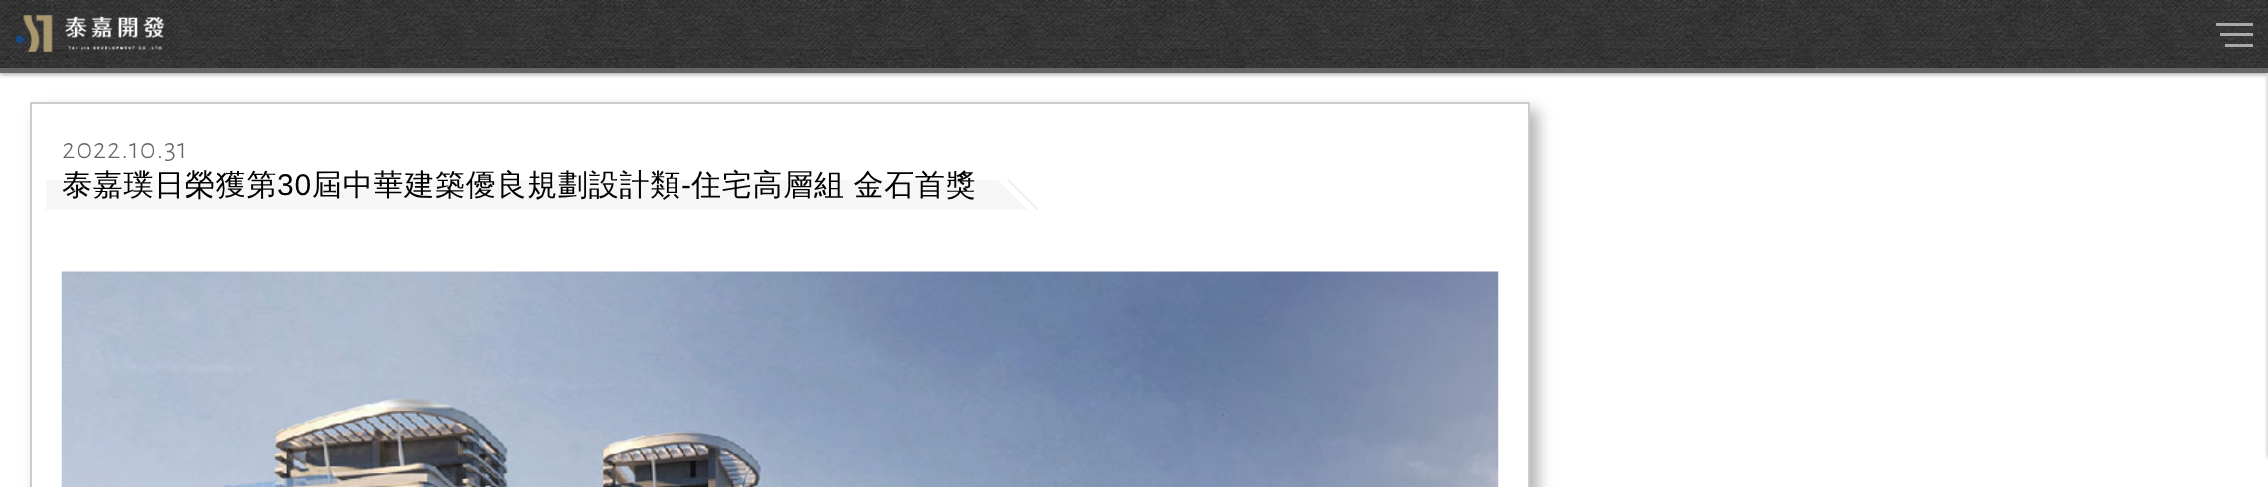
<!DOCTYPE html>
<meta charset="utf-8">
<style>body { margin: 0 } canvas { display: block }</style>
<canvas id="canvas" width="2268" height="487"></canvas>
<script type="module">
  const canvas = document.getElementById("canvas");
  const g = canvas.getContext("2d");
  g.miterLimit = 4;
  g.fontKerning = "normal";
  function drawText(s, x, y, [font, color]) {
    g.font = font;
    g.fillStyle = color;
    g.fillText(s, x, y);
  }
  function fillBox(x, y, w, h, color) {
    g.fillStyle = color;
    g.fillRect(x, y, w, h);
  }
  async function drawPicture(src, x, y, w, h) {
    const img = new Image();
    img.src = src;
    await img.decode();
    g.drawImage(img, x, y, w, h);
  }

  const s1 = ["300 30px Alegreya Sans", "#666666"];
  const s2 = ["500 30px WenQuanYi Zen Hei", "#000000"];
  const s3 = ["30px Liberation Sans", "#000000"];

  fillBox(0, 0, 2268, 487, "#FFFFFF");
  g.fillStyle = "rgba(0, 0, 0, 0.3)";
  g.filter = "blur(2px)";
  g.beginPath();
  g.rect(0, 3, 2268, 72);
  g.fill();
  g.filter = "none";
  await drawPicture("pic1.png", 0, 0, 2268, 68);
  fillBox(0, 68, 2268, 5, "#666666");
  await drawPicture("pic2.png", 15, 15, 150, 37);
  fillBox(2216, 23, 37, 3, "#AAAAAA");
  fillBox(2220, 33, 33, 3, "#AAAAAA");
  fillBox(2225, 44, 28, 3, "#AAAAAA");
  g.fillStyle = "rgba(0, 0, 0, 0.3)";
  g.filter = "blur(2px)";
  g.beginPath();
  g.rect(2268, 75, 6, 383);
  g.fill();
  g.filter = "none";
  g.save();
  g.beginPath();
  g.moveTo(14, 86);
  g.lineTo(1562, 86);
  g.lineTo(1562, 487);
  g.lineTo(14, 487);
  g.closePath();
  g.moveTo(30, 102);
  g.lineTo(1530, 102);
  g.lineTo(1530, 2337);
  g.lineTo(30, 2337);
  g.closePath();
  g.clip("evenodd");
  g.filter = "blur(7.5px)";
  g.beginPath();
  g.rect(38, 110, 1500, 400);
  g.fill();
  g.filter = "none";
  g.restore();
  g.strokeStyle = "#CCCCCC";
  g.lineWidth = 2;
  g.strokeRect(31, 103, 1498, 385);
  g.letterSpacing = "0.75px";
  drawText("2022.10.31", 62, 158, s1);
  g.fillStyle = "#F7F7F7";
  g.beginPath();
  g.moveTo(1028, 210);
  g.lineTo(46, 210);
  g.lineTo(46, 180);
  g.lineTo(998, 180);
  g.closePath();
  g.fill();
  drawText("泰嘉璞日榮獲第", 62, 195, s2);
  drawText("30", 277, 195, s3);
  drawText("屆中華建築優良規劃設計類", 312, 195, s2);
  g.wordSpacing = "-1px";
  drawText("住宅高層組 金石首獎", 691, 195, s2);
  g.fillStyle = "#EEEEEE";
  g.beginPath();
  g.moveTo(1008.5, 179);
  g.lineTo(1038.5, 209);
  g.lineTo(1037, 210);
  g.lineTo(1007.5, 180.5);
  g.closePath();
  g.fill();
  g.wordSpacing = "0px";
  drawText("-", 681, 195, s3);
  await drawPicture("pic3.png", 61, 271, 1438, 216);
</script>
